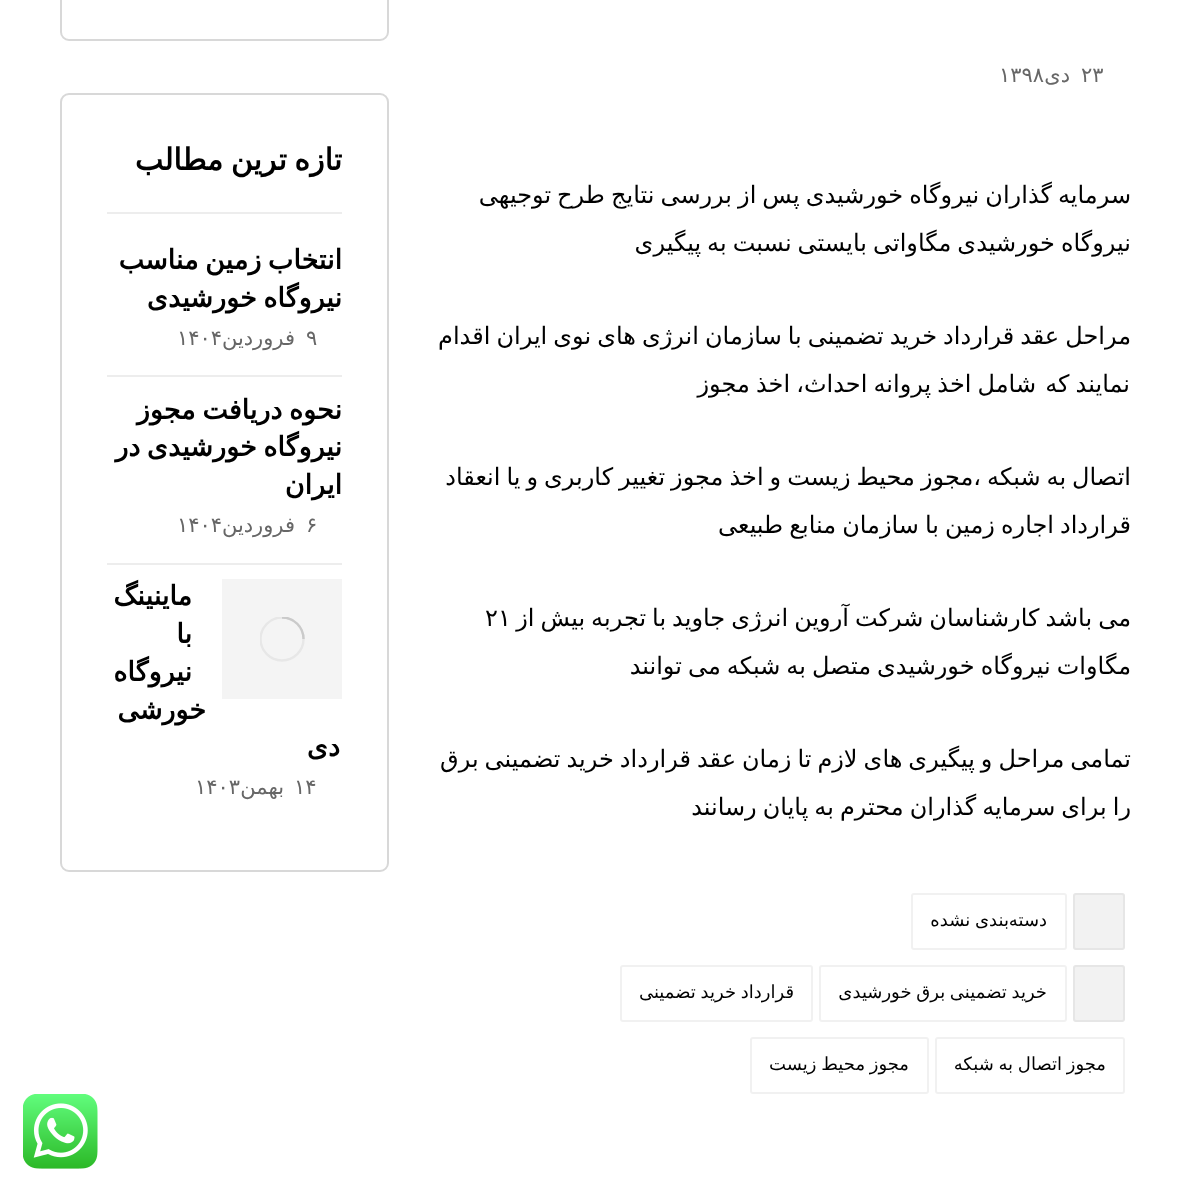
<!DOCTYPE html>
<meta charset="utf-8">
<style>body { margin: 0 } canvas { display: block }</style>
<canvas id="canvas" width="1190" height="1190"></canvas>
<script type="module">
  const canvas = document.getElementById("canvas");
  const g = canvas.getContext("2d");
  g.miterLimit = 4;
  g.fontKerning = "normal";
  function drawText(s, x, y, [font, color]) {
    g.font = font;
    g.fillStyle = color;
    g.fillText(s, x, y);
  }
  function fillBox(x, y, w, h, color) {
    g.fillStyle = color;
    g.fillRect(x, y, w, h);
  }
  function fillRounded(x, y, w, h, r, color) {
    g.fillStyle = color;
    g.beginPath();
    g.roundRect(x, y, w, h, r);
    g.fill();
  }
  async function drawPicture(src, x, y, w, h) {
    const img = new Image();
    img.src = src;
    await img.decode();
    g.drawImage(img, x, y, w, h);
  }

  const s1 = ["21px DejaVu Sans", "#676767"];
  const s2 = ["24px DejaVu Sans", "#000000"];
  const s3 = ["18px DejaVu Sans", "#000000"];
  const s4 = ["bold 30px DejaVu Sans", "#000000"];
  const s5 = ["bold 27px DejaVu Sans", "#000000"];

  fillBox(0, 0, 1190, 1190, "#FFFFFF");
  drawText("۲۳", 1081, 82, s1);
  g.direction = "rtl";
  drawText("دی", 1070, 82, s1);
  g.direction = "ltr";
  drawText("۱۳۹۸", 999, 82, s1);
  g.wordSpacing = "-1.6px";
  g.direction = "rtl";
  drawText("سرمایه گذاران نیروگاه خورشیدی پس از بررسی نتایج طرح توجیهی", 1131, 203, s2);
  drawText("نیروگاه خورشیدی مگاواتی بایستی نسبت به پیگیری", 1131, 251, s2);
  drawText("مراحل عقد قرارداد خرید تضمینی با سازمان انرژی های نوی ایران اقدام", 1131, 344, s2);
  g.wordSpacing = "-1.5px";
  drawText("نمایند که", 1130, 392, s2);
  drawText("شامل اخذ پروانه احداث، اخذ مجوز", 1036, 392, s2);
  g.wordSpacing = "-1.6px";
  drawText("اتصال به شبکه ،مجوز محیط زیست و اخذ مجوز تغییر کاربری و یا انعقاد", 1131, 485, s2);
  drawText("قرارداد اجاره زمین با سازمان منابع طبیعی", 1131, 533, s2);
  drawText("می باشد کارشناسان شرکت آروین انرژی جاوید با تجربه بیش از", 1131, 626, s2);
  g.wordSpacing = "0px";
  g.direction = "ltr";
  drawText("۲۱", 485, 626, s2);
  g.wordSpacing = "-1.6px";
  g.direction = "rtl";
  drawText("مگاوات نیروگاه خورشیدی متصل به شبکه می توانند", 1131, 674, s2);
  drawText("تمامی مراحل و پیگیری های لازم تا زمان عقد قرارداد خرید تضمینی برق", 1131, 767, s2);
  drawText("را برای سرمایه گذاران محترم به پایان رسانند", 1131, 815, s2);
  fillRounded(1073, 893, 52, 57, 3, "#F2F2F2");
  g.beginPath();
  g.roundRect(1074, 894, 50, 55, 2);
  g.strokeStyle = "rgba(167, 167, 167, 0.16)";
  g.lineWidth = 2;
  g.stroke();
  g.beginPath();
  g.roundRect(912, 894, 154, 55, 2);
  g.strokeStyle = "#F1F1F1";
  g.stroke();
  g.wordSpacing = "0px";
  drawText("دسته", 1047, 926, s3);
  g.wordSpacing = "-1px";
  drawText("بندی نشده", 1009, 926, s3);
  fillRounded(1073, 965, 52, 57, 3, "#F2F2F2");
  g.beginPath();
  g.roundRect(1074, 966, 50, 55, 2);
  g.strokeStyle = "rgba(167, 167, 167, 0.16)";
  g.stroke();
  g.beginPath();
  g.roundRect(820, 966, 246, 55, 2);
  g.strokeStyle = "#F1F1F1";
  g.stroke();
  drawText("خرید تضمینی برق خورشیدی", 1047, 998, s3);
  g.beginPath();
  g.roundRect(621, 966, 191, 55, 2);
  g.stroke();
  drawText("قرارداد خرید تضمینی", 794, 998, s3);
  g.beginPath();
  g.roundRect(936, 1038, 188, 55, 2);
  g.stroke();
  drawText("مجوز اتصال به شبکه", 1106, 1070, s3);
  g.beginPath();
  g.roundRect(751, 1038, 177, 55, 2);
  g.stroke();
  drawText("مجوز محیط زیست", 909, 1070, s3);
  g.beginPath();
  g.roundRect(61, -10, 327, 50, 8);
  g.strokeStyle = "#D8D8D8";
  g.stroke();
  g.beginPath();
  g.roundRect(61, 94, 327, 777, 8);
  g.stroke();
  fillBox(107, 212, 235, 2, "#EDEDED");
  g.wordSpacing = "-2px";
  drawText("تازه ترین مطالب", 342, 170, s4);
  fillBox(107, 375, 235, 2, "#EDEDED");
  drawText("انتخاب زمین مناسب", 342, 269, s5);
  drawText("نیروگاه خورشیدی", 342, 307, s5);
  g.wordSpacing = "0px";
  g.direction = "ltr";
  drawText("۹", 306, 345, s1);
  g.direction = "rtl";
  drawText("فروردین", 295, 345, s1);
  g.direction = "ltr";
  drawText("۱۴۰۴", 177, 345, s1);
  fillBox(107, 563, 235, 2, "#EDEDED");
  g.wordSpacing = "-2px";
  g.direction = "rtl";
  drawText("نحوه دریافت مجوز", 342, 419, s5);
  drawText("نیروگاه خورشیدی در", 342, 456, s5);
  g.wordSpacing = "0px";
  drawText("ایران", 342, 494, s5);
  g.direction = "ltr";
  drawText("۶", 306, 532, s1);
  g.direction = "rtl";
  drawText("فروردین", 295, 532, s1);
  g.direction = "ltr";
  drawText("۱۴۰۴", 177, 532, s1);
  fillBox(222, 579, 120, 120, "#F4F4F4");
  g.save();
  g.beginPath();
  g.rect(260, 617, 45, 45);
  g.clip();
  g.beginPath();
  g.arc(282, 639, 21.5, 0, Math.PI * 2);
  g.strokeStyle = "#E7E7E7";
  g.lineWidth = 2.4;
  g.stroke();
  g.beginPath();
  g.moveTo(303.5, 639);
  g.bezierCurveTo(303.5, 627, 294, 617.5, 282, 617.5);
  g.strokeStyle = "#CACACA";
  g.stroke();
  g.restore();
  g.direction = "rtl";
  drawText("ماینینگ", 192, 605, s5);
  drawText("با", 192, 643, s5);
  drawText("نیروگاه", 192, 681, s5);
  drawText("خورشی", 206, 719, s5);
  drawText("دی", 340, 756, s5);
  g.direction = "ltr";
  drawText("۱۴", 294, 794, s1);
  g.direction = "rtl";
  drawText("بهمن", 284, 794, s1);
  g.direction = "ltr";
  drawText("۱۴۰۳", 195, 794, s1);
  await drawPicture("pic1.png", 23, 1094, 75, 75);
</script>
